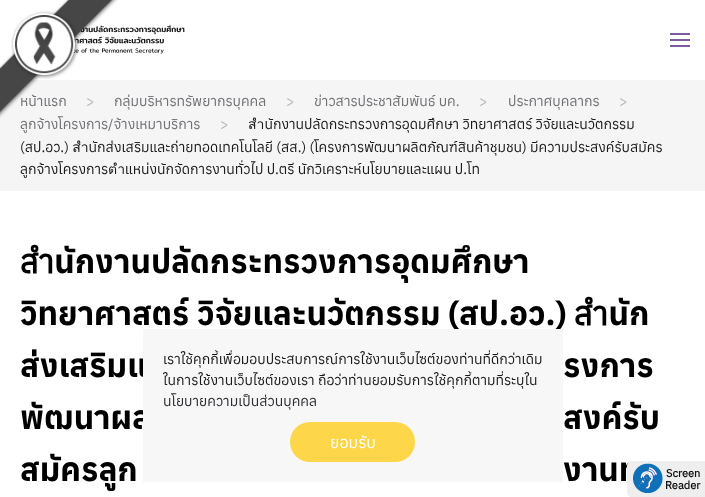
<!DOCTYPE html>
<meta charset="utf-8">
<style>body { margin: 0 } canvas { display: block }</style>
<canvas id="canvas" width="705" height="497"></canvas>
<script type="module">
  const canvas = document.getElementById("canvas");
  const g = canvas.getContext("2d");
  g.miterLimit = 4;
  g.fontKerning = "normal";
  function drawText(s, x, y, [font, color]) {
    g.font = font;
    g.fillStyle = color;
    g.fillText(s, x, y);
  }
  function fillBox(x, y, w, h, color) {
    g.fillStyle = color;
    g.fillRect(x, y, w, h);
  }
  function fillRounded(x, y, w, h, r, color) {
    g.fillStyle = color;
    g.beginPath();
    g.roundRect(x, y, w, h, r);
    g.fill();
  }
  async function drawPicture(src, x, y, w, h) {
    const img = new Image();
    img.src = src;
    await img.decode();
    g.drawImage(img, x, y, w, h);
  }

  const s1 = ["14px Anuphan", "#727075"];
  const s2 = ["14px Anuphan", "#B4B5BA"];
  const s3 = ["14px Anuphan", "#1B1A1C"];
  const s4 = ["bold 32.25px Anuphan", "#000000"];
  const s5 = ["14px Anuphan", "#2D2E33"];
  const s6 = ["16px Anuphan", "#FFFFFF"];
  const s7 = ["bold 11px 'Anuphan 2'", "#111111"];

  fillBox(0, 0, 705, 497, "#FFFFFF");
  await drawPicture("pic2.png", 16, 24, 169, 30);
  fillBox(0, 80, 705, 111, "#F5F5F5");
  drawText("หน้าแรก", 20, 106, s1);
  drawText(">", 86, 106, s2);
  drawText("กลุ่มบริหารทรัพยากรบุคคล", 114, 106, s1);
  drawText("ลูกจ้างโครงการ/จ้างเหมาบริการ", 20, 129, s1);
  await drawPicture("pic1.png", 0, 0, 118, 118);
  fillBox(670, 33, 20, 2, "#7D5AA3");
  fillBox(670, 39, 20, 2, "#7D5AA3");
  fillBox(670, 45, 20, 2, "#7D5AA3");
  drawText(">", 286, 106, s2);
  drawText("ข่าวสารประชาสัมพันธ์ บค.", 314, 106, s1);
  drawText(">", 479, 106, s2);
  drawText("ประกาศบุคลากร", 508, 106, s1);
  drawText(">", 619, 106, s2);
  drawText(">", 220, 129, s2);
  drawText("สำนักงานปลัดกระทรวงการอุดมศึกษา วิทยาศาสตร์ วิจัยและนวัตกรรม", 248, 129, s3);
  drawText("(สป.อว.) สำนักส่งเสริมและถ่ายทอดเทคโนโลยี (สส.) (โครงการพัฒนาผลิตภัณฑ์สินค้าชุมชน) มีความประสงค์รับสมัคร", 20, 152, s3);
  drawText("ลูกจ้างโครงการตำแหน่งนักจัดการงานทั่วไป ป.ตรี นักวิเคราะห์นโยบายและแผน ป.โท", 20, 174, s3);
  g.save();
  g.beginPath();
  g.rect(20, 233, 665, 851);
  g.clip();
  drawText("สำนักงานปลัดกระทรวงการอุดมศึกษา", 20, 273, s4);
  drawText("วิทยาศาสตร์ วิจัยและนวัตกรรม (สป.อว.) สำนัก", 20, 325, s4);
  drawText("ส่งเสริมแ", 20, 377, s4);
  g.restore();
  drawText("รงการ", 563, 377, s4);
  g.save();
  g.beginPath();
  g.rect(20, 233, 665, 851);
  g.clip();
  drawText("พัฒนาผล", 20, 429, s4);
  g.restore();
  drawText("สงค์รับ", 563, 429, s4);
  drawText("สมัครลูก", 20, 481, s4);
  drawText("งานท", 563, 481, s4);
  fillBox(143, 329, 420, 153, "#F7F7F7");
  drawText("เราใช้คุกกี้เพื่อมอบประสบการณ์การใช้งานเว็บไซต์ของท่านที่ดีกว่าเดิม", 163, 364, s3);
  drawText("ในการใช้งานเว็บไซต์ของเรา ถือว่าท่านยอมรับการใช้คุกกี้ตามที่ระบุใน", 163, 385, s3);
  drawText("นโยบายความเป็นส่วนบุคคล", 163, 406, s5);
  fillRounded(290, 422, 125, 40, 20, "#FED649");
  drawText("ยอมรับ", 330, 448, s6);
  g.fillStyle = "#EEEEEE";
  g.beginPath();
  g.moveTo(632, 461);
  g.lineTo(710, 461);
  g.lineTo(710, 497);
  g.lineTo(632, 497);
  g.bezierCurveTo(629, 497, 627, 495, 627, 492);
  g.lineTo(627, 466);
  g.bezierCurveTo(627, 463, 629, 461, 632, 461);
  g.closePath();
  g.fill();
  await drawPicture("pic3.png", 633, 463, 30, 30);
  drawText("Screen", 666, 477, s7);
  drawText("Reader", 665, 489, s7);
</script>
